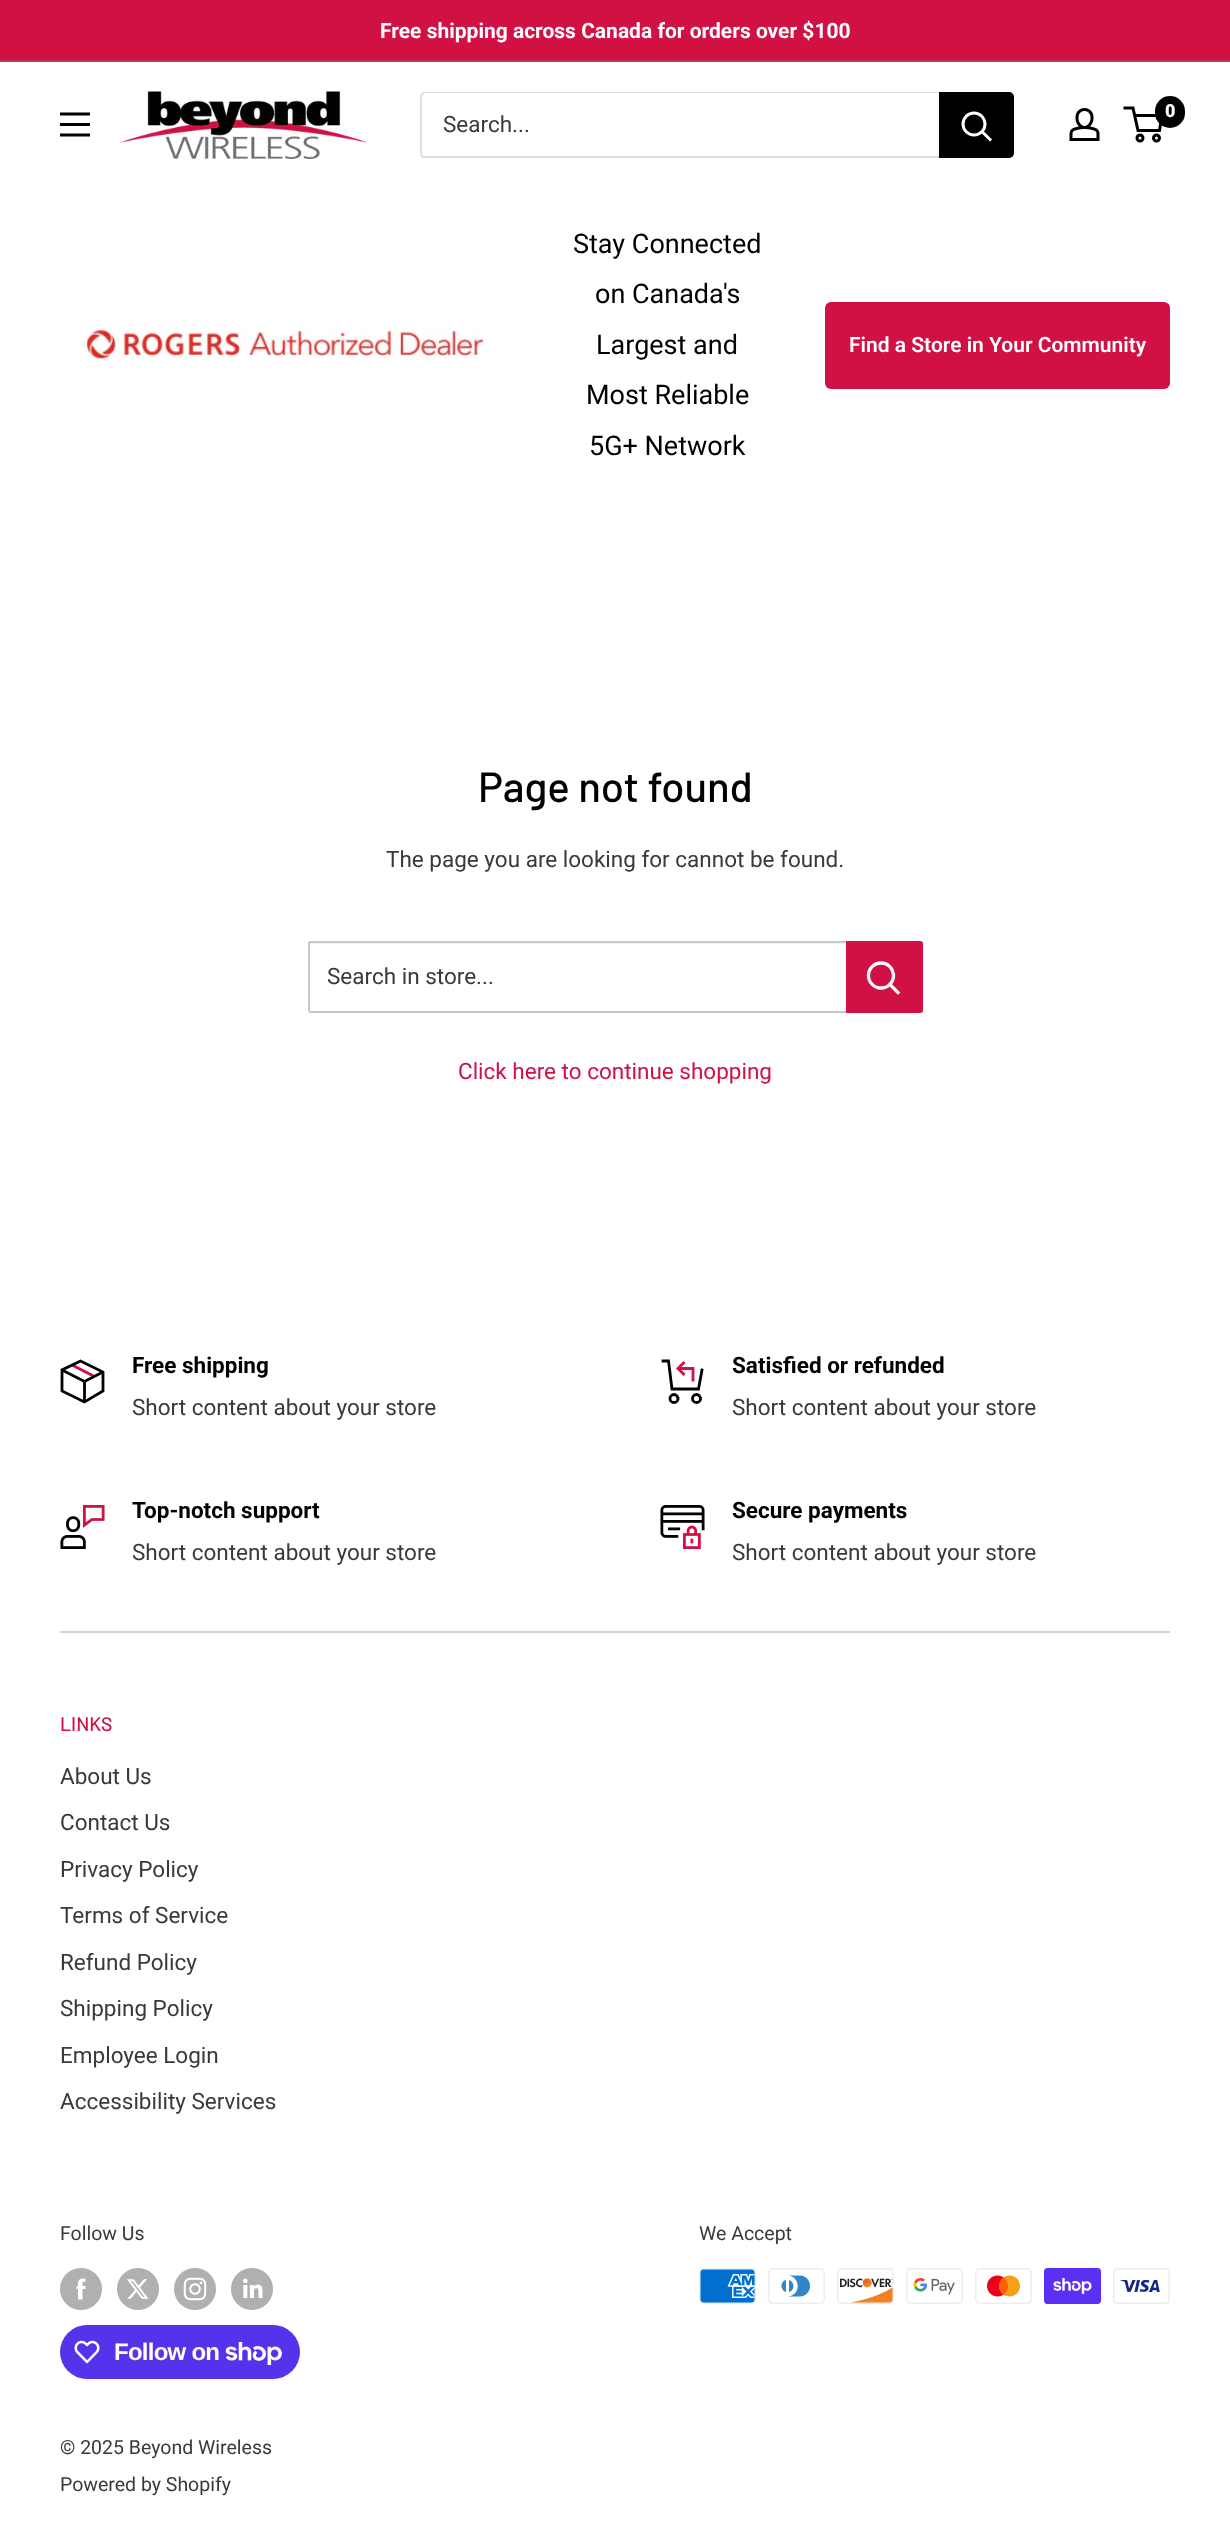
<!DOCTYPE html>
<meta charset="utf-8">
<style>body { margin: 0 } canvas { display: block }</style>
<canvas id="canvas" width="1230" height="2542"></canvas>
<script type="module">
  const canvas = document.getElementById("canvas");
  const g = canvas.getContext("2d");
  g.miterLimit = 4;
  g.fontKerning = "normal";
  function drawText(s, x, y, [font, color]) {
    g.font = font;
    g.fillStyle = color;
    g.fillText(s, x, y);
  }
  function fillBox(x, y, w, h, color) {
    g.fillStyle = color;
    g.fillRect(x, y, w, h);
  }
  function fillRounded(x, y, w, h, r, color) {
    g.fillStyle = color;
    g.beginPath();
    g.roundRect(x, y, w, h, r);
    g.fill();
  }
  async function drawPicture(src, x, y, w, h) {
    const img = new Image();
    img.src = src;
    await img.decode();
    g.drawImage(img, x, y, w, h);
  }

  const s1 = ["bold 21px Roboto", "#FFFFFF"];
  const s2 = ["900 18px Roboto", "#FFFFFF"];
  const s3 = ["22.5px Roboto", "#393939"];
  const s4 = ["27px Roboto", "#000000"];
  const s5 = ["600 21px Roboto", "#FFFFFF"];
  const s6 = ["500 42px Barlow", "#000000"];
  const s7 = ["22.5px Roboto", "#D11044"];
  const s8 = ["bold 22.5px Roboto", "#000000"];
  const s9 = ["500 19.5px Barlow", "#D11044"];
  const s10 = ["19.5px Roboto", "#393939"];
  const s11 = ["bold 24px Liberation Sans", "#FFFFFF"];

  fillBox(0, 0, 1230, 2542, "#FFFFFF");
  fillBox(0, 0, 1230, 60, "#D11044");
  fillBox(0, 60, 1230, 2, "#BC375D");
  drawText("Free shipping across Canada for orders over $100", 380, 38, s1);
  await drawPicture("pic1.png", 120, 91, 248, 68);
  await drawPicture("pic2.png", 1069, 108, 31, 33);
  g.beginPath();
  g.arc(1140, 138, 3, 0, Math.PI * 2);
  g.strokeStyle = "#000000";
  g.lineWidth = 3;
  g.stroke();
  g.beginPath();
  g.arc(1156.5, 138, 3, 0, Math.PI * 2);
  g.stroke();
  g.beginPath();
  g.moveTo(1134.5, 115.5);
  g.lineTo(1162, 115.5);
  g.lineTo(1159.5, 130.5);
  g.lineTo(1138, 130.5);
  g.lineTo(1133, 108);
  g.lineTo(1123.5, 108);
  g.stroke();
  fillRounded(1155, 96, 30, 32, 15, "#000000");
  drawText("0", 1165, 117, s2);
  await drawPicture("pic3.png", 60, 112, 30, 25);
  g.fillStyle = "#DCDEE0";
  g.beginPath();
  g.moveTo(421, 155);
  g.bezierCurveTo(421, 157, 423, 158, 425, 158);
  g.lineTo(1009, 158);
  g.bezierCurveTo(1012, 158, 1014, 156, 1014, 153);
  g.lineTo(1014, 97);
  g.bezierCurveTo(1014, 95, 1013, 94, 1012, 93);
  g.lineTo(1012, 152);
  g.bezierCurveTo(1012, 154, 1010, 156, 1008, 156);
  g.lineTo(423, 156);
  g.closePath();
  g.fill();
  g.fillStyle = "rgba(138, 146, 151, 0.3)";
  g.beginPath();
  g.moveTo(426, 93);
  g.lineTo(1012, 93);
  g.bezierCurveTo(1011, 92, 1010, 92, 1009, 92);
  g.lineTo(425, 92);
  g.bezierCurveTo(422, 92, 420, 94, 420, 97);
  g.lineTo(420, 153);
  g.bezierCurveTo(420, 155, 421, 157, 423, 158);
  g.bezierCurveTo(423, 157, 422, 156, 422, 154);
  g.lineTo(422, 98);
  g.bezierCurveTo(422, 95, 424, 93, 426, 93);
  g.closePath();
  g.fill();
  drawText("Search...", 443, 132, s3);
  g.fillStyle = "#000000";
  g.beginPath();
  g.roundRect(939, 92, 75, 66, [0, 5, 5, 0]);
  g.fill();
  g.beginPath();
  g.moveTo(990, 139.5);
  g.lineTo(982.5, 132);
  g.strokeStyle = "#FFFFFF";
  g.lineCap = "square";
  g.stroke();
  g.beginPath();
  g.arc(974, 124, 11, 0, Math.PI * 2);
  g.stroke();
  await drawPicture("pic4.png", 86, 327, 398, 33);
  drawText("Stay Connected", 573, 253, s4);
  drawText("on Canada's", 595, 303, s4);
  drawText("Largest and", 596, 354, s4);
  drawText("Most Reliable", 586, 404, s4);
  drawText("5G+ Network", 589, 455, s4);
  fillRounded(825, 302, 345, 87, 6, "#D11044");
  drawText("Find a Store in Your Community", 849, 352, s5);
  drawText("Page not found", 478, 802, s6);
  drawText("The page you are looking for cannot be found.", 386, 867, s3);
  g.fillStyle = "#F3F5F5";
  g.beginPath();
  g.moveTo(310, 944);
  g.lineTo(846, 944);
  g.lineTo(846, 942);
  g.lineTo(310, 942);
  g.bezierCurveTo(309, 942, 309, 944, 309, 945);
  g.closePath();
  g.fill();
  fillBox(309, 941, 537, 2, "#C2C9CB");
  fillBox(309, 1011, 537, 2, "#C2C9CB");
  fillBox(308, 942, 2, 69, "#C2C9CB");
  drawText("Search in store...", 327, 984, s3);
  g.fillStyle = "#D11044";
  g.beginPath();
  g.roundRect(846, 941, 77, 72, [0, 3, 3, 0]);
  g.fill();
  g.beginPath();
  g.moveTo(898, 992.5);
  g.lineTo(890, 984.5);
  g.lineWidth = 3.3;
  g.stroke();
  g.beginPath();
  g.arc(881, 975.5, 12.5, 0, Math.PI * 2);
  g.stroke();
  drawText("Click here to continue shopping", 458, 1079, s7);
  g.beginPath();
  g.moveTo(72, 1365);
  g.lineTo(94.5, 1376.5);
  g.strokeStyle = "#D11044";
  g.lineWidth = 2.8;
  g.lineCap = "butt";
  g.stroke();
  g.beginPath();
  g.moveTo(103, 1372);
  g.lineTo(84.5, 1381.5);
  g.lineTo(62, 1370);
  g.moveTo(84.5, 1381.5);
  g.lineTo(84.5, 1402);
  g.strokeStyle = "#000000";
  g.stroke();
  g.beginPath();
  g.moveTo(103, 1372);
  g.lineTo(103, 1391);
  g.lineTo(84.5, 1402);
  g.lineTo(62, 1391);
  g.lineTo(62, 1370);
  g.lineTo(80.5, 1361);
  g.closePath();
  g.lineCap = "square";
  g.stroke();
  drawText("Free shipping", 132, 1373, s8);
  drawText("Short content about your store", 132, 1415, s3);
  g.beginPath();
  g.moveTo(678, 1368.5);
  g.lineTo(693, 1368.5);
  g.lineTo(693, 1381.5);
  g.strokeStyle = "#D11044";
  g.lineCap = "butt";
  g.stroke();
  g.beginPath();
  g.moveTo(683.5, 1374);
  g.lineTo(678, 1368.5);
  g.lineTo(683.5, 1363);
  g.lineCap = "square";
  g.stroke();
  g.beginPath();
  g.moveTo(702, 1370);
  g.lineTo(698.5, 1389);
  g.lineTo(672, 1389);
  g.lineTo(668.5, 1361);
  g.lineTo(663, 1361);
  g.strokeStyle = "#000000";
  g.stroke();
  g.beginPath();
  g.arc(674, 1398.5, 4, 0, Math.PI * 2);
  g.stroke();
  g.beginPath();
  g.arc(696.5, 1398.5, 4, 0, Math.PI * 2);
  g.stroke();
  drawText("Satisfied or refunded", 732, 1373, s8);
  drawText("Short content about your store", 732, 1415, s3);
  await drawPicture("pic5.png", 60, 1505, 45, 44);
  drawText("Top-notch support", 132, 1518, s8);
  drawText("Short content about your store", 132, 1560, s3);
  await drawPicture("pic6.png", 660, 1505, 45, 44);
  drawText("Secure payments", 732, 1518, s8);
  drawText("Short content about your store", 732, 1560, s3);
  fillBox(60, 1631, 1110, 2, "#D0D5D7");
  drawText("LINKS", 60, 1731, s9);
  drawText("About Us", 60, 1784, s3);
  drawText("Contact Us", 60, 1830, s3);
  drawText("Privacy Policy", 60, 1877, s3);
  drawText("Terms of Service", 60, 1923, s3);
  drawText("Refund Policy", 60, 1970, s3);
  drawText("Shipping Policy", 60, 2016, s3);
  drawText("Employee Login", 60, 2063, s3);
  drawText("Accessibility Services", 60, 2109, s3);
  drawText("Follow Us", 60, 2240, s10);
  await drawPicture("pic7.png", 60, 2268, 42, 42);
  await drawPicture("pic8.png", 117, 2268, 42, 42);
  await drawPicture("pic9.png", 174, 2268, 42, 42);
  await drawPicture("pic10.png", 231, 2268, 42, 42);
  fillRounded(60, 2325, 240, 54, 27, "#5433EB");
  await drawPicture("pic11.png", 74, 2340, 26, 24);
  g.letterSpacing = "-0.75px";
  drawText("Follow on", 114, 2360, s11);
  await drawPicture("pic12.png", 225, 2342, 57, 23);
  g.letterSpacing = "0px";
  drawText("We Accept", 699, 2240, s10);
  await drawPicture("pic13.png", 699, 2268, 57, 36);
  await drawPicture("pic14.png", 768, 2268, 57, 36);
  await drawPicture("pic15.png", 837, 2268, 57, 36);
  await drawPicture("pic16.png", 906, 2268, 57, 36);
  await drawPicture("pic17.png", 975, 2268, 57, 36);
  await drawPicture("pic18.png", 1044, 2268, 57, 36);
  await drawPicture("pic19.png", 1113, 2268, 57, 36);
  drawText("© 2025 Beyond Wireless", 60, 2454, s10);
  drawText("Powered by Shopify", 60, 2491, s10);
</script>
